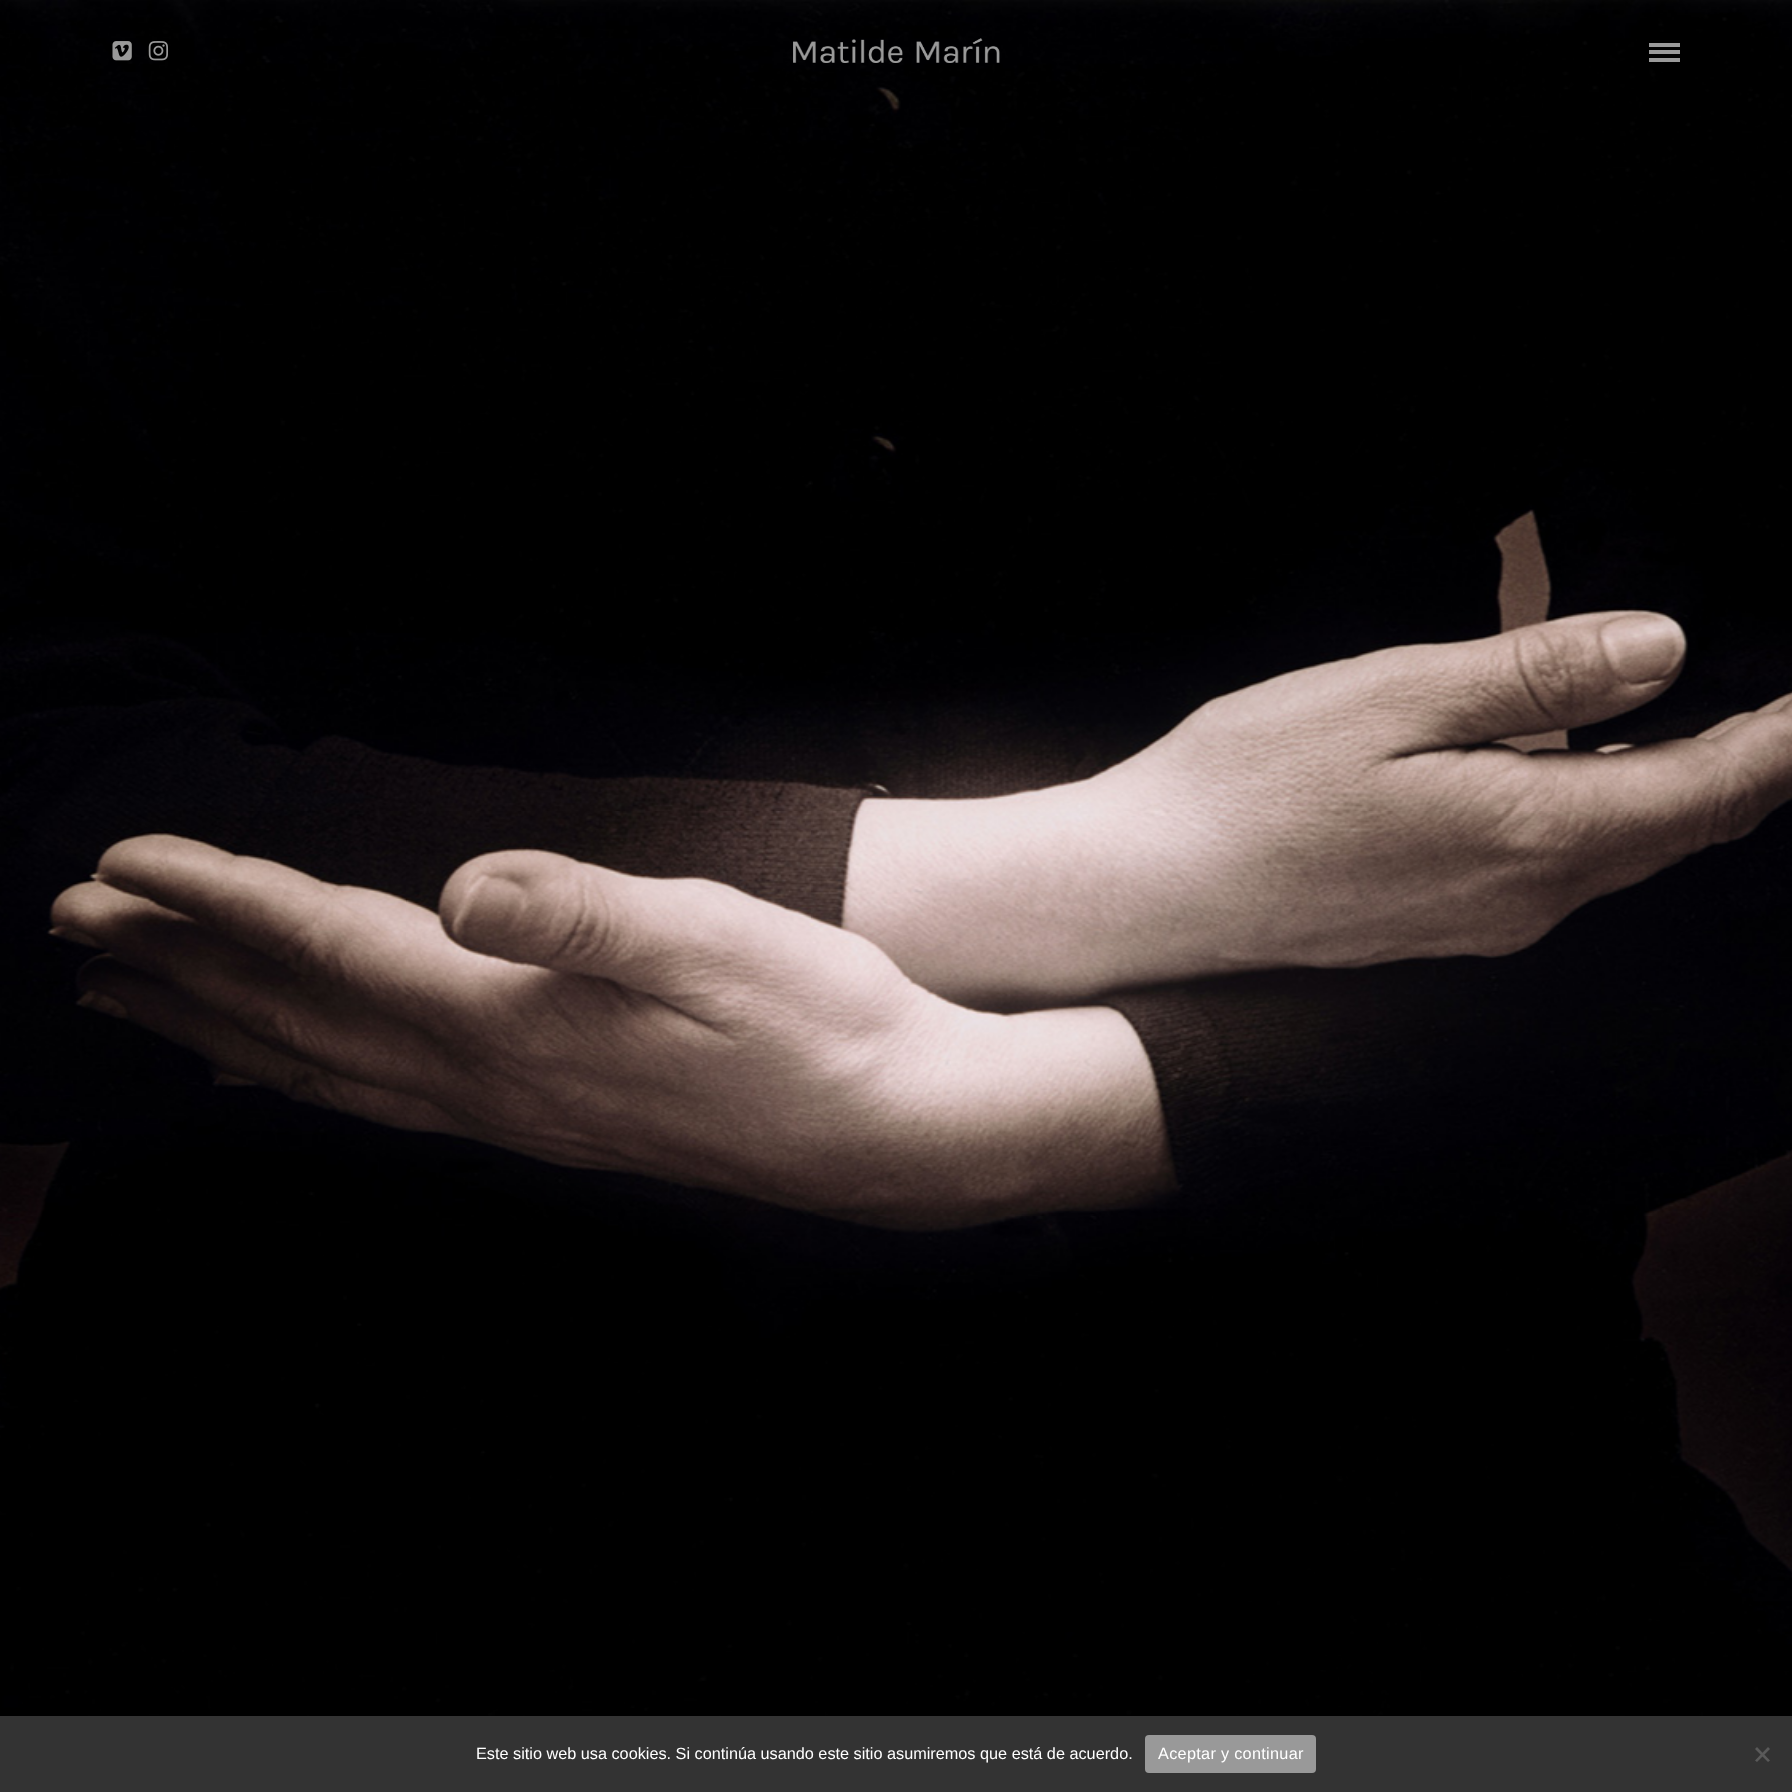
<!DOCTYPE html>
<meta charset="utf-8">
<style>body { margin: 0 } canvas { display: block }</style>
<canvas id="canvas" width="1792" height="1792"></canvas>
<script type="module">
  const canvas = document.getElementById("canvas");
  const g = canvas.getContext("2d");
  g.miterLimit = 4;
  g.fontKerning = "normal";
  function drawText(s, x, y, [font, color]) {
    g.font = font;
    g.fillStyle = color;
    g.fillText(s, x, y);
  }
  function fillBox(x, y, w, h, color) {
    g.fillStyle = color;
    g.fillRect(x, y, w, h);
  }
  function fillRounded(x, y, w, h, r, color) {
    g.fillStyle = color;
    g.beginPath();
    g.roundRect(x, y, w, h, r);
    g.fill();
  }
  async function drawPicture(src, x, y, w, h) {
    const img = new Image();
    img.src = src;
    await img.decode();
    g.drawImage(img, x, y, w, h);
  }

  const s1 = ["16.25px Liberation Sans", "#FFFFFF"];

  fillBox(0, 0, 1792, 1792, "#FFFFFF");
  await drawPicture("pic1.png", 0, 0, 1792, 1716);
  await drawPicture("pic2.png", 112, 41, 20, 20);
  await drawPicture("pic3.png", 148, 41, 21, 20);
  await drawPicture("pic4.png", 793, 38, 207, 25);
  fillBox(1649, 43, 31, 4, "#999999");
  fillBox(1649, 50, 31, 4, "#999999");
  fillBox(1649, 58, 31, 4, "#999999");
  fillBox(0, 1716, 1792, 76, "#333333");
  drawText("Este sitio web usa cookies. Si continúa usando este sitio asumiremos que está de acuerdo.", 476, 1759, s1);
  fillRounded(1145, 1735, 171, 38, 4, "#999999");
  g.letterSpacing = "0.3px";
  drawText("Aceptar y continuar", 1158, 1759, s1);
  g.fillStyle = "#5A5A5A";
  g.beginPath();
  g.moveTo(1768, 1747);
  g.lineTo(1770, 1749);
  g.lineTo(1757, 1762);
  g.lineTo(1755, 1760.5);
  g.closePath();
  g.fill();
  g.beginPath();
  g.moveTo(1755, 1749);
  g.lineTo(1757, 1747);
  g.lineTo(1770, 1760.5);
  g.lineTo(1768, 1762);
  g.closePath();
  g.fill();
</script>
